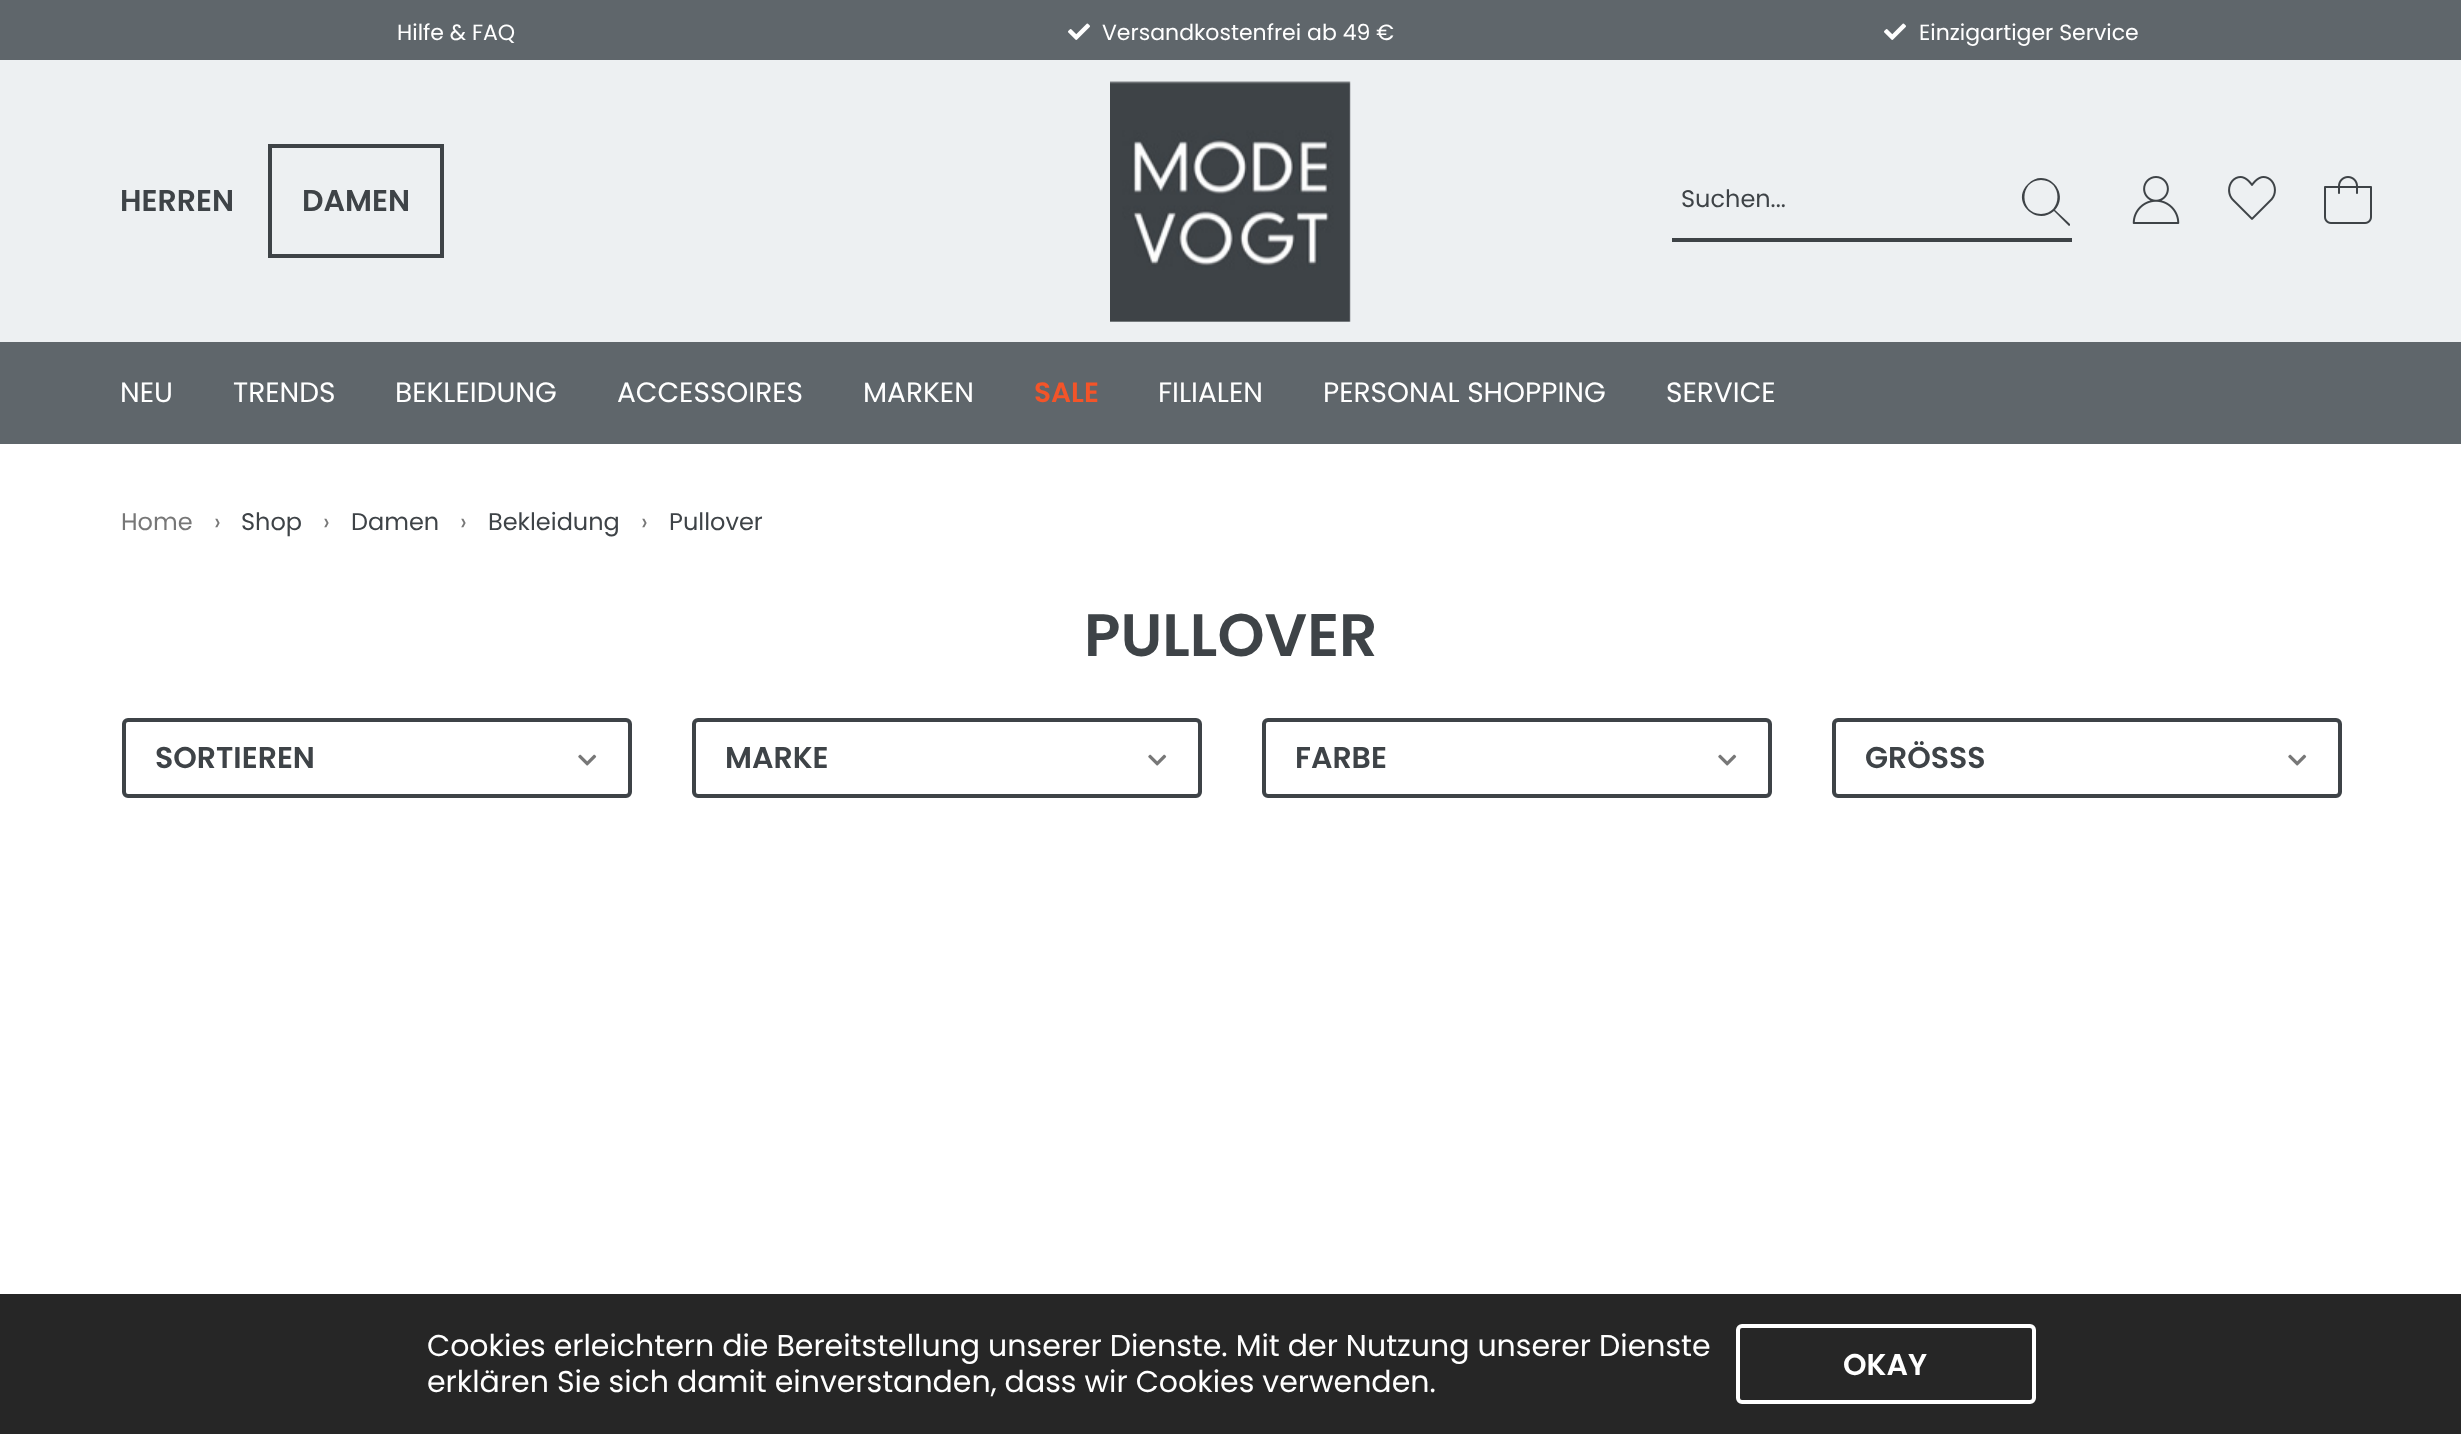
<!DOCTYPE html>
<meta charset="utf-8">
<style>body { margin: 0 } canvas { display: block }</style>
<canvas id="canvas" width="2461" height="1434"></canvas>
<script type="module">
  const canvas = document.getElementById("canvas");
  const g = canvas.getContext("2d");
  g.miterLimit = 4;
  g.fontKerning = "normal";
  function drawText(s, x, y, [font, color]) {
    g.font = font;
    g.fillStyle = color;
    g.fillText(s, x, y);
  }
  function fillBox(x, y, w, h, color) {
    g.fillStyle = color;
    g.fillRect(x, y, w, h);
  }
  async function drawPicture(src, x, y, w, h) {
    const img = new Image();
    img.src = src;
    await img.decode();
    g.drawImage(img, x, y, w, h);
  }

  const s1 = ["22px Poppins", "#FFFFFF"];
  const s2 = ["600 30px Poppins", "#3E4347"];
  const s3 = ["24px Poppins", "#3E4347"];
  const s4 = ["28px Poppins", "#FFFFFF"];
  const s5 = ["600 28px Poppins", "#F35429"];
  const s6 = ["24px Poppins", "#777777"];
  const s7 = ["600 60px Poppins", "#3E4347"];
  const s8 = ["30px Poppins", "#FFFFFF"];
  const s9 = ["600 30px Poppins", "#FFFFFF"];

  fillBox(0, 0, 2461, 1434, "#FFFFFF");
  fillBox(0, 0, 2461, 60, "#5F666B");
  drawText("Hilfe & FAQ", 397, 40, s1);
  await drawPicture("pic1.png", 1068, 23, 22, 17);
  drawText("Versandkostenfrei ab 49 €", 1102, 40, s1);
  await drawPicture("pic1.png", 1884, 23, 22, 17);
  drawText("Einzigartiger Service", 1919, 40, s1);
  fillBox(0, 60, 2461, 282, "#EDF0F2");
  drawText("HERREN", 120, 211, s2);
  g.strokeStyle = "#3E4347";
  g.lineWidth = 4;
  g.strokeRect(270, 146, 172, 110);
  drawText("DAMEN", 302, 211, s2);
  await drawPicture("pic2.png", 1110, 81, 241, 241);
  fillBox(1672, 238, 400, 4, "#3E4347");
  drawText("Suchen...", 1681, 207, s3);
  g.beginPath();
  g.moveTo(2070, 224);
  g.lineTo(2055, 210);
  g.bezierCurveTo(2071, 192, 2045, 166, 2028, 184);
  g.bezierCurveTo(2010, 201, 2036, 227, 2054, 211);
  g.lineTo(2069, 226);
  g.bezierCurveTo(2070, 226, 2070, 225, 2070, 224);
  g.closePath();
  g.moveTo(2041, 214);
  g.bezierCurveTo(2019, 214, 2019, 180, 2041, 180);
  g.bezierCurveTo(2063, 180, 2063, 214, 2041, 214);
  g.closePath();
  g.fill();
  await drawPicture("pic3.png", 2132, 176, 48, 48);
  await drawPicture("pic4.png", 2228, 176, 48, 44);
  await drawPicture("pic5.png", 2324, 176, 48, 48);
  fillBox(0, 342, 2461, 102, "#5F666B");
  drawText("NEU", 120, 402, s4);
  drawText("TRENDS", 233, 402, s4);
  drawText("BEKLEIDUNG", 395, 402, s4);
  drawText("ACCESSOIRES", 617, 402, s4);
  drawText("MARKEN", 863, 402, s4);
  drawText("SALE", 1034, 402, s5);
  drawText("FILIALEN", 1158, 402, s4);
  drawText("PERSONAL SHOPPING", 1323, 402, s4);
  drawText("SERVICE", 1666, 402, s4);
  drawText("Home", 121, 530, s6);
  drawText("›", 214, 530, s6);
  drawText("Shop", 241, 530, s3);
  drawText("›", 323, 530, s6);
  drawText("Damen", 351, 530, s3);
  drawText("›", 460, 530, s6);
  drawText("Bekleidung", 488, 530, s3);
  drawText("›", 641, 530, s6);
  drawText("Pullover", 669, 530, s3);
  drawText("PULLOVER", 1084, 656, s7);
  g.beginPath();
  g.roundRect(124, 720, 506, 76, 4);
  g.stroke();
  drawText("SORTIEREN", 155, 768, s2);
  await drawPicture("pic6.png", 578, 754, 19, 12);
  g.beginPath();
  g.roundRect(694, 720, 506, 76, 4);
  g.stroke();
  drawText("MARKE", 725, 768, s2);
  await drawPicture("pic6.png", 1148, 754, 19, 12);
  g.beginPath();
  g.roundRect(1264, 720, 506, 76, 4);
  g.stroke();
  drawText("FARBE", 1295, 768, s2);
  await drawPicture("pic6.png", 1718, 754, 19, 12);
  g.beginPath();
  g.roundRect(1834, 720, 506, 76, 4);
  g.stroke();
  drawText("GRÖSSS", 1865, 768, s2);
  await drawPicture("pic6.png", 2288, 754, 19, 12);
  fillBox(0, 1294, 2461, 140, "#262626");
  drawText("Cookies erleichtern die Bereitstellung unserer Dienste. Mit der Nutzung unserer Dienste", 427, 1356, s8);
  drawText("erklären Sie sich damit einverstanden, dass wir Cookies verwenden.", 427, 1392, s8);
  g.beginPath();
  g.roundRect(1738, 1326, 296, 76, 4);
  g.strokeStyle = "#FFFFFF";
  g.stroke();
  drawText("OKAY", 1843, 1375, s9);
</script>
